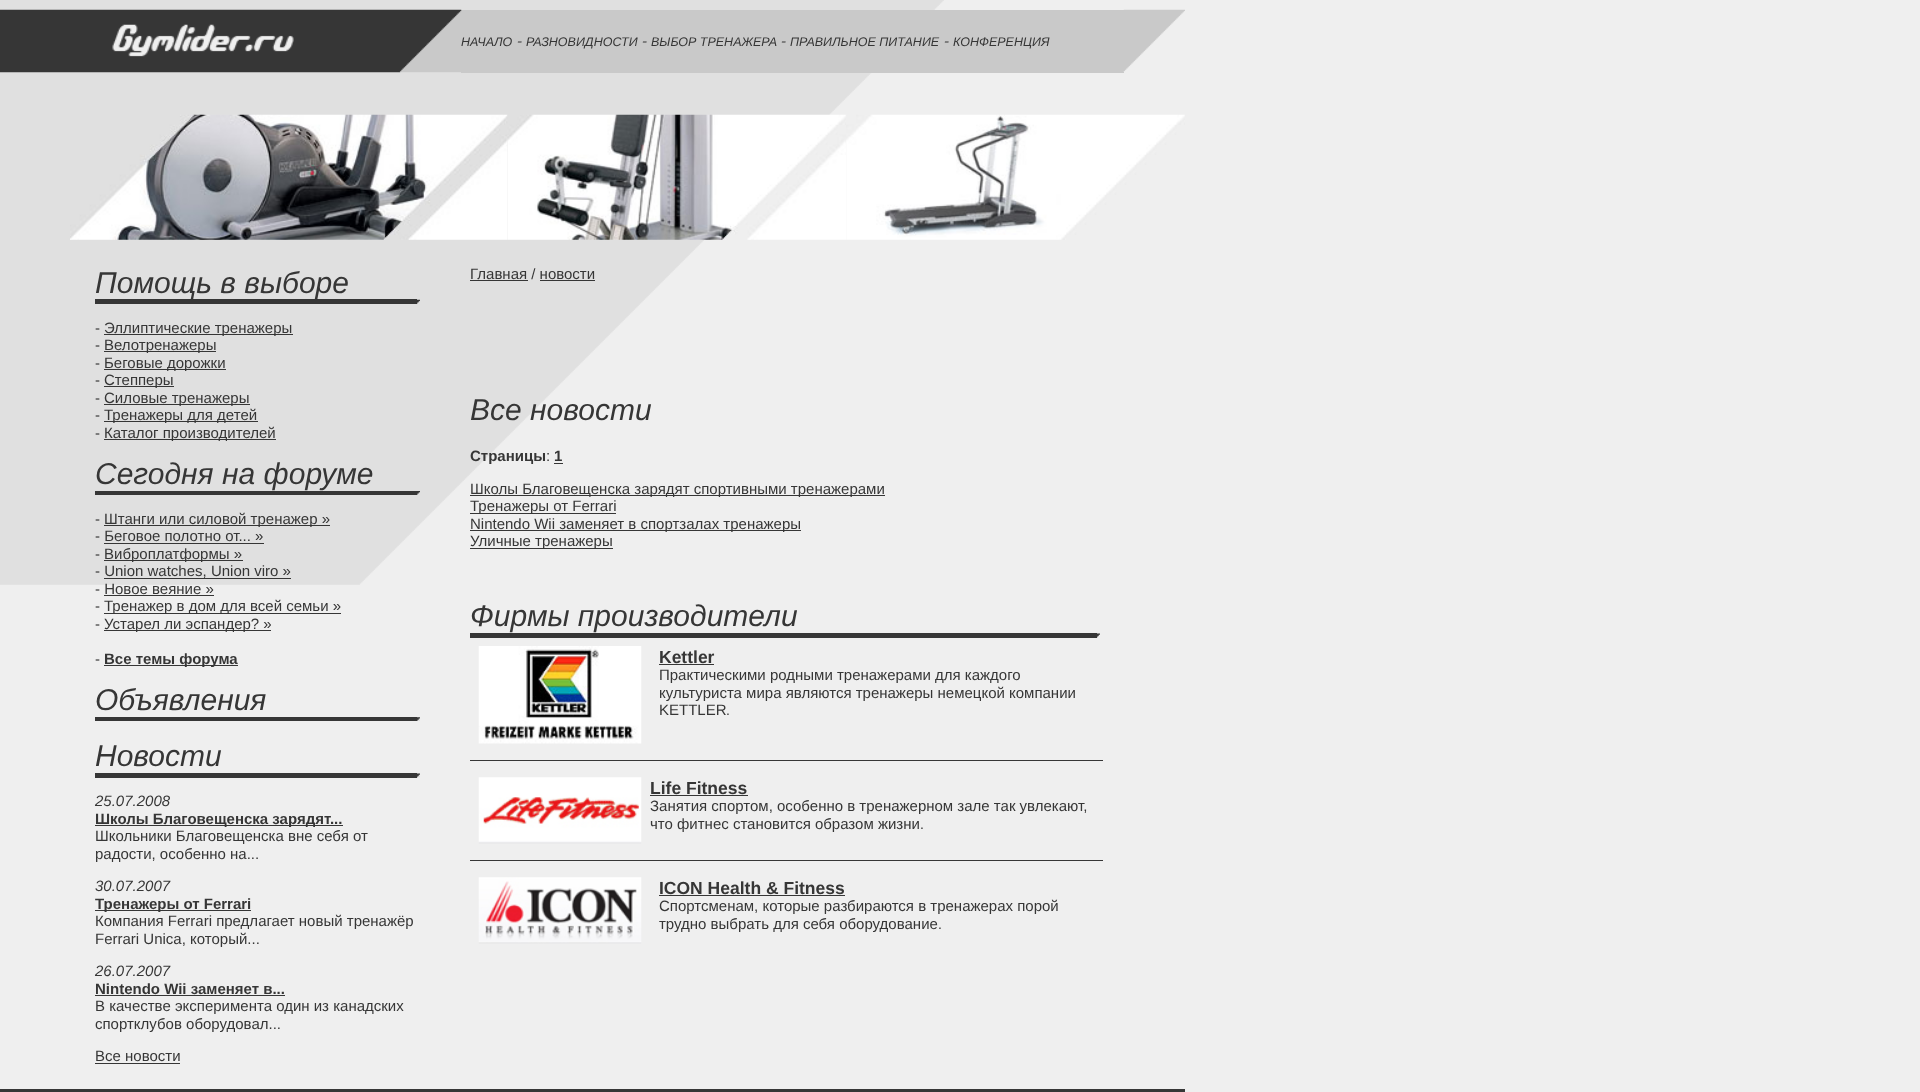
<!DOCTYPE html>
<meta charset="utf-8">
<style>body { margin: 0 } canvas { display: block }</style>
<canvas id="canvas" width="1920" height="1092"></canvas>
<script type="module">
  const canvas = document.getElementById("canvas");
  const g = canvas.getContext("2d");
  g.miterLimit = 4;
  g.fontKerning = "normal";
  function drawText(s, x, y, [font, color]) {
    g.font = font;
    g.fillStyle = color;
    g.fillText(s, x, y);
  }
  function fillBox(x, y, w, h, color) {
    g.fillStyle = color;
    g.fillRect(x, y, w, h);
  }
  async function drawPicture(src, x, y, w, h) {
    const img = new Image();
    img.src = src;
    await img.decode();
    g.drawImage(img, x, y, w, h);
  }

  const s1 = ["italic 12.5px Liberation Sans", "#363636"];
  const s2 = ["italic 15px Liberation Sans", "#363636"];
  const s3 = ["italic 30px Liberation Sans", "#363636"];
  const s4 = ["15px Liberation Sans", "#363636"];
  const s5 = ["bold 15px Liberation Sans", "#363636"];
  const s6 = ["bold 17.5px Liberation Sans", "#363636"];
  const s7 = ["14px Liberation Sans", "#363636"];

  fillBox(0, 0, 1920, 1092, "#EFEFEF");
  await drawPicture("pic1.png", 0, 0, 944, 585);
  fillBox(461, 10, 663, 63, "#C9C9C9");
  await drawPicture("pic2.png", 0, 9, 462, 64);
  drawText("НАЧАЛО", 461, 46, s1);
  drawText("-", 517, 46, s2);
  drawText("РАЗНОВИДНОСТИ", 526, 46, s1);
  drawText("-", 642, 46, s2);
  drawText("ВЫБОР ТРЕНАЖЕРА", 651, 46, s1);
  drawText("-", 781, 46, s2);
  drawText("ПРАВИЛЬНОЕ ПИТАНИЕ", 790, 46, s1);
  drawText("-", 944, 46, s2);
  drawText("КОНФЕРЕНЦИЯ", 953, 46, s1);
  await drawPicture("pic3.png", 1123, 9, 62, 63);
  await drawPicture("pic4.png", 70, 114, 438, 126);
  await drawPicture("pic5.png", 507, 114, 340, 126);
  await drawPicture("pic6.png", 846, 114, 339, 126);
  drawText("Помощь в выборе", 95, 293, s3);
  fillBox(95, 299, 322, 5, "#363636");
  await drawPicture("pic7.png", 417, 299, 3, 5);
  drawText("-", 95, 333, s4);
  fillBox(104, 334, 189, 1, "#363636");
  drawText("Эллиптические тренажеры", 104, 333, s4);
  drawText("-", 95, 350, s4);
  fillBox(104, 351, 112, 1, "#363636");
  drawText("Велотренажеры", 104, 350, s4);
  drawText("-", 95, 368, s4);
  fillBox(104, 369, 122, 1, "#363636");
  drawText("Беговые дорожки", 104, 368, s4);
  drawText("-", 95, 385, s4);
  fillBox(104, 386, 70, 1, "#363636");
  drawText("Степперы", 104, 385, s4);
  drawText("-", 95, 403, s4);
  fillBox(104, 404, 146, 1, "#363636");
  drawText("Силовые тренажеры", 104, 403, s4);
  drawText("-", 95, 420, s4);
  fillBox(104, 421, 154, 1, "#363636");
  drawText("Тренажеры для детей", 104, 420, s4);
  drawText("-", 95, 438, s4);
  fillBox(104, 439, 172, 1, "#363636");
  drawText("Каталог производителей", 104, 438, s4);
  drawText("Сегодня на форуме", 95, 484, s3);
  fillBox(95, 491, 322, 4, "#363636");
  await drawPicture("pic8.png", 417, 491, 3, 4);
  drawText("-", 95, 524, s4);
  fillBox(104, 525, 226, 1, "#363636");
  drawText("Штанги или силовой тренажер »", 104, 524, s4);
  drawText("- Беговое полотно от... »", 95, 541, s4);
  fillBox(104, 543, 160, 1, "#363636");
  drawText("-", 95, 559, s4);
  fillBox(104, 560, 139, 1, "#363636");
  drawText("Виброплатформы »", 104, 559, s4);
  drawText("- Union watches, Union viro »", 95, 576, s4);
  fillBox(104, 578, 187, 1, "#363636");
  drawText("- Новое веяние »", 95, 594, s4);
  fillBox(104, 595, 110, 1, "#363636");
  drawText("-", 95, 611, s4);
  fillBox(104, 613, 237, 1, "#363636");
  drawText("Тренажер в дом для всей семьи »", 104, 611, s4);
  drawText("-", 95, 629, s4);
  fillBox(104, 630, 167, 1, "#363636");
  drawText("Устарел ли эспандер? »", 104, 629, s4);
  drawText("-", 95, 664, s4);
  fillBox(104, 665, 134, 1, "#363636");
  drawText("Все темы форума", 104, 664, s5);
  drawText("Объявления", 95, 710, s3);
  fillBox(95, 717, 322, 4, "#363636");
  await drawPicture("pic9.png", 417, 717, 3, 4);
  drawText("Новости", 95, 766, s3);
  fillBox(95, 773, 322, 5, "#363636");
  await drawPicture("pic10.png", 417, 773, 3, 5);
  drawText("25.07.2008", 95, 806, s2);
  fillBox(95, 825, 248, 1, "#363636");
  drawText("Школы Благовещенска зарядят...", 95, 824, s5);
  drawText("Школьники Благовещенска вне себя от", 95, 841, s4);
  drawText("радости, особенно на...", 95, 859, s4);
  drawText("30.07.2007", 95, 891, s2);
  fillBox(95, 910, 156, 1, "#363636");
  drawText("Тренажеры от Ferrari", 95, 909, s5);
  drawText("Компания Ferrari предлагает новый тренажёр", 95, 926, s4);
  drawText("Ferrari Unica, который...", 95, 944, s4);
  drawText("26.07.2007", 95, 976, s2);
  drawText("Nintendo Wii заменяет в...", 95, 994, s5);
  fillBox(95, 995, 190, 1, "#363636");
  drawText("В качестве эксперимента один из канадских", 95, 1011, s4);
  drawText("спортклубов оборудовал...", 95, 1029, s4);
  drawText("Все новости", 95, 1061, s4);
  fillBox(95, 1063, 85, 1, "#363636");
  drawText("Главная / новости", 470, 279, s4);
  fillBox(470, 280, 58, 1, "#363636");
  fillBox(540, 280, 55, 1, "#363636");
  drawText("Все новости", 470, 420, s3);
  drawText("Страницы", 470, 461, s5);
  drawText(":", 546, 461, s4);
  drawText("1", 554, 461, s5);
  fillBox(554, 463, 9, 1, "#363636");
  fillBox(470, 495, 415, 1, "#363636");
  drawText("Школы Благовещенска зарядят спортивными тренажерами", 470, 494, s4);
  fillBox(470, 513, 146, 1, "#363636");
  drawText("Тренажеры от Ferrari", 470, 511, s4);
  fillBox(470, 530, 331, 1, "#363636");
  drawText("Nintendo Wii заменяет в спортзалах тренажеры", 470, 529, s4);
  fillBox(470, 548, 143, 1, "#363636");
  drawText("Уличные тренажеры", 470, 546, s4);
  drawText("Фирмы производители", 470, 626, s3);
  fillBox(470, 633, 627, 5, "#363636");
  await drawPicture("pic11.png", 1097, 633, 3, 5);
  await drawPicture("pic12.png", 478, 646, 164, 98);
  drawText("Kettler", 659, 663, s6);
  fillBox(659, 664, 55, 1, "#363636");
  drawText("Практическими родными тренажерами для каждого", 659, 680, s4);
  drawText("культуриста мира являются тренажеры немецкой компании", 659, 698, s4);
  drawText("KETTLER", 659, 715, s4);
  drawText(".", 726, 715, s7);
  fillBox(470, 760, 633, 1, "#363636");
  await drawPicture("pic13.png", 478, 777, 164, 67);
  drawText("Life Fitness", 650, 794, s6);
  fillBox(650, 795, 98, 1, "#363636");
  drawText("Занятия спортом, особенно в тренажерном зале так увлекают,", 650, 811, s4);
  drawText("что фитнес становится образом жизни", 650, 829, s4);
  drawText(".", 920, 829, s7);
  fillBox(470, 860, 633, 1, "#363636");
  await drawPicture("pic14.png", 478, 877, 164, 67);
  drawText("ICON Health & Fitness", 659, 894, s6);
  fillBox(659, 895, 186, 1, "#363636");
  drawText("Спортсменам, которые разбираются в тренажерах порой", 659, 911, s4);
  drawText("трудно выбрать для себя оборудование", 659, 929, s4);
  drawText(".", 938, 929, s7);
  fillBox(0, 1089, 1179, 3, "#363636");
  fillBox(1179, 1089, 6, 3, "#373737");
</script>
